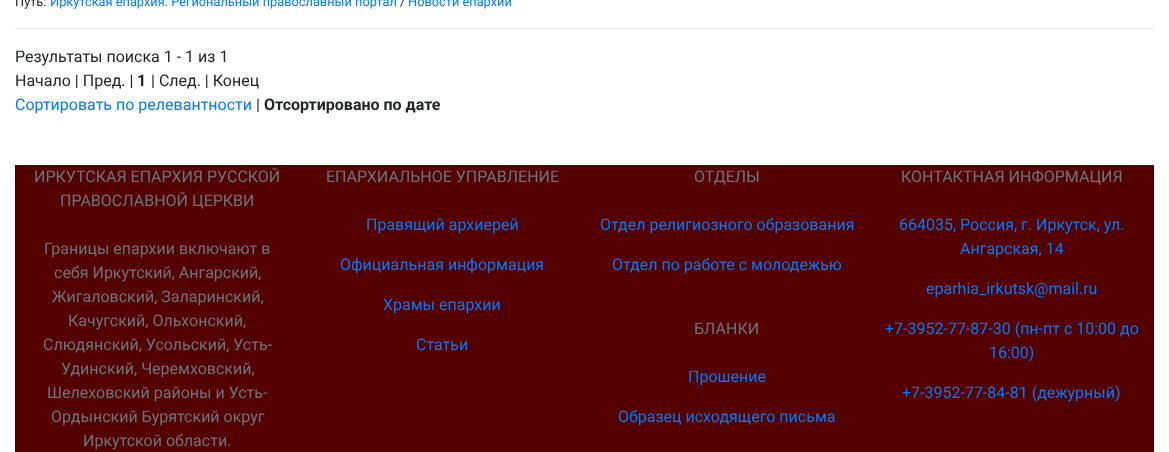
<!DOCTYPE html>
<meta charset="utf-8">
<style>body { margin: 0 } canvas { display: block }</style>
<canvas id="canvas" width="1169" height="452"></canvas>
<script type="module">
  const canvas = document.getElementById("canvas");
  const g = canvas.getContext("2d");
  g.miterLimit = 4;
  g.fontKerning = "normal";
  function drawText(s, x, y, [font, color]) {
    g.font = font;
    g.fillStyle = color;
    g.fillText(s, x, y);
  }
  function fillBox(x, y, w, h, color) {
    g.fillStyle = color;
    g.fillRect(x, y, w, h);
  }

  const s1 = ["12.8px Roboto", "#212529"];
  const s2 = ["12.8px Roboto", "#007BFF"];
  const s3 = ["16px Roboto", "#212529"];
  const s4 = ["bold 16px Roboto", "#212529"];
  const s5 = ["16px Roboto", "#007BFF"];
  const s6 = ["16px Roboto", "#6C757D"];

  fillBox(0, 0, 1169, 452, "#FFFFFF");
  drawText("Путь:", 15, 6, s1);
  drawText("Иркутская епархия. Региональный православный портал", 50, 6, s2);
  drawText("/", 400, 6, s1);
  drawText("Новости епархии", 408, 6, s2);
  fillBox(15, 28, 1139, 1, "#E6E6E6");
  drawText("Результаты поиска 1 - 1 из 1", 15, 62, s3);
  drawText("Начало | Пред. |", 15, 86, s3);
  drawText("1", 137, 86, s4);
  drawText("| След. | Конец", 151, 86, s3);
  drawText("Сортировать по релевантности", 15, 110, s5);
  drawText("|", 256, 110, s3);
  drawText("Отсортировано по дате", 264, 110, s4);
  fillBox(15, 165, 1139, 287, "#550000");
  drawText("ИРКУТСКАЯ ЕПАРХИЯ РУССКОЙ", 34, 182, s6);
  drawText("ПРАВОСЛАВНОЙ ЦЕРКВИ", 60, 206, s6);
  drawText("Границы епархии включают в", 44, 254, s6);
  drawText("себя Иркутский, Ангарский,", 54, 278, s6);
  drawText("Жигаловский, Заларинский,", 52, 302, s6);
  drawText("Качугский, Ольхонский,", 68, 326, s6);
  drawText("Слюдянский, Усольский, Усть-", 43, 350, s6);
  drawText("Удинский, Черемховский,", 61, 374, s6);
  drawText("Шелеховский районы и Усть-", 47, 398, s6);
  drawText("Ордынский Бурятский округ", 51, 422, s6);
  drawText("Иркутской области.", 83, 446, s6);
  drawText("ЕПАРХИАЛЬНОЕ УПРАВЛЕНИЕ", 326, 182, s6);
  drawText("Правящий архиерей", 366, 230, s5);
  drawText("Официальная информация", 340, 270, s5);
  drawText("Храмы епархии", 383, 310, s5);
  drawText("Статьи", 416, 350, s5);
  drawText("ОТДЕЛЫ", 694, 182, s6);
  drawText("Отдел религиозного образования", 600, 230, s5);
  drawText("Отдел по работе с молодежью", 612, 270, s5);
  drawText("БЛАНКИ", 694, 334, s6);
  drawText("Прошение", 688, 382, s5);
  drawText("Образец исходящего письма", 618, 422, s5);
  drawText("КОНТАКТНАЯ ИНФОРМАЦИЯ", 901, 182, s6);
  drawText("664035, Россия, г. Иркутск, ул.", 899, 230, s5);
  drawText("Ангарская, 14", 960, 254, s5);
  drawText("eparhia_irkutsk@mail.ru", 926, 294, s5);
  drawText("+7-3952-77-87-30 (пн-пт с 10:00 до", 885, 334, s5);
  drawText("16:00)", 989, 358, s5);
  drawText("+7-3952-77-84-81 (дежурный)", 902, 398, s5);
</script>
